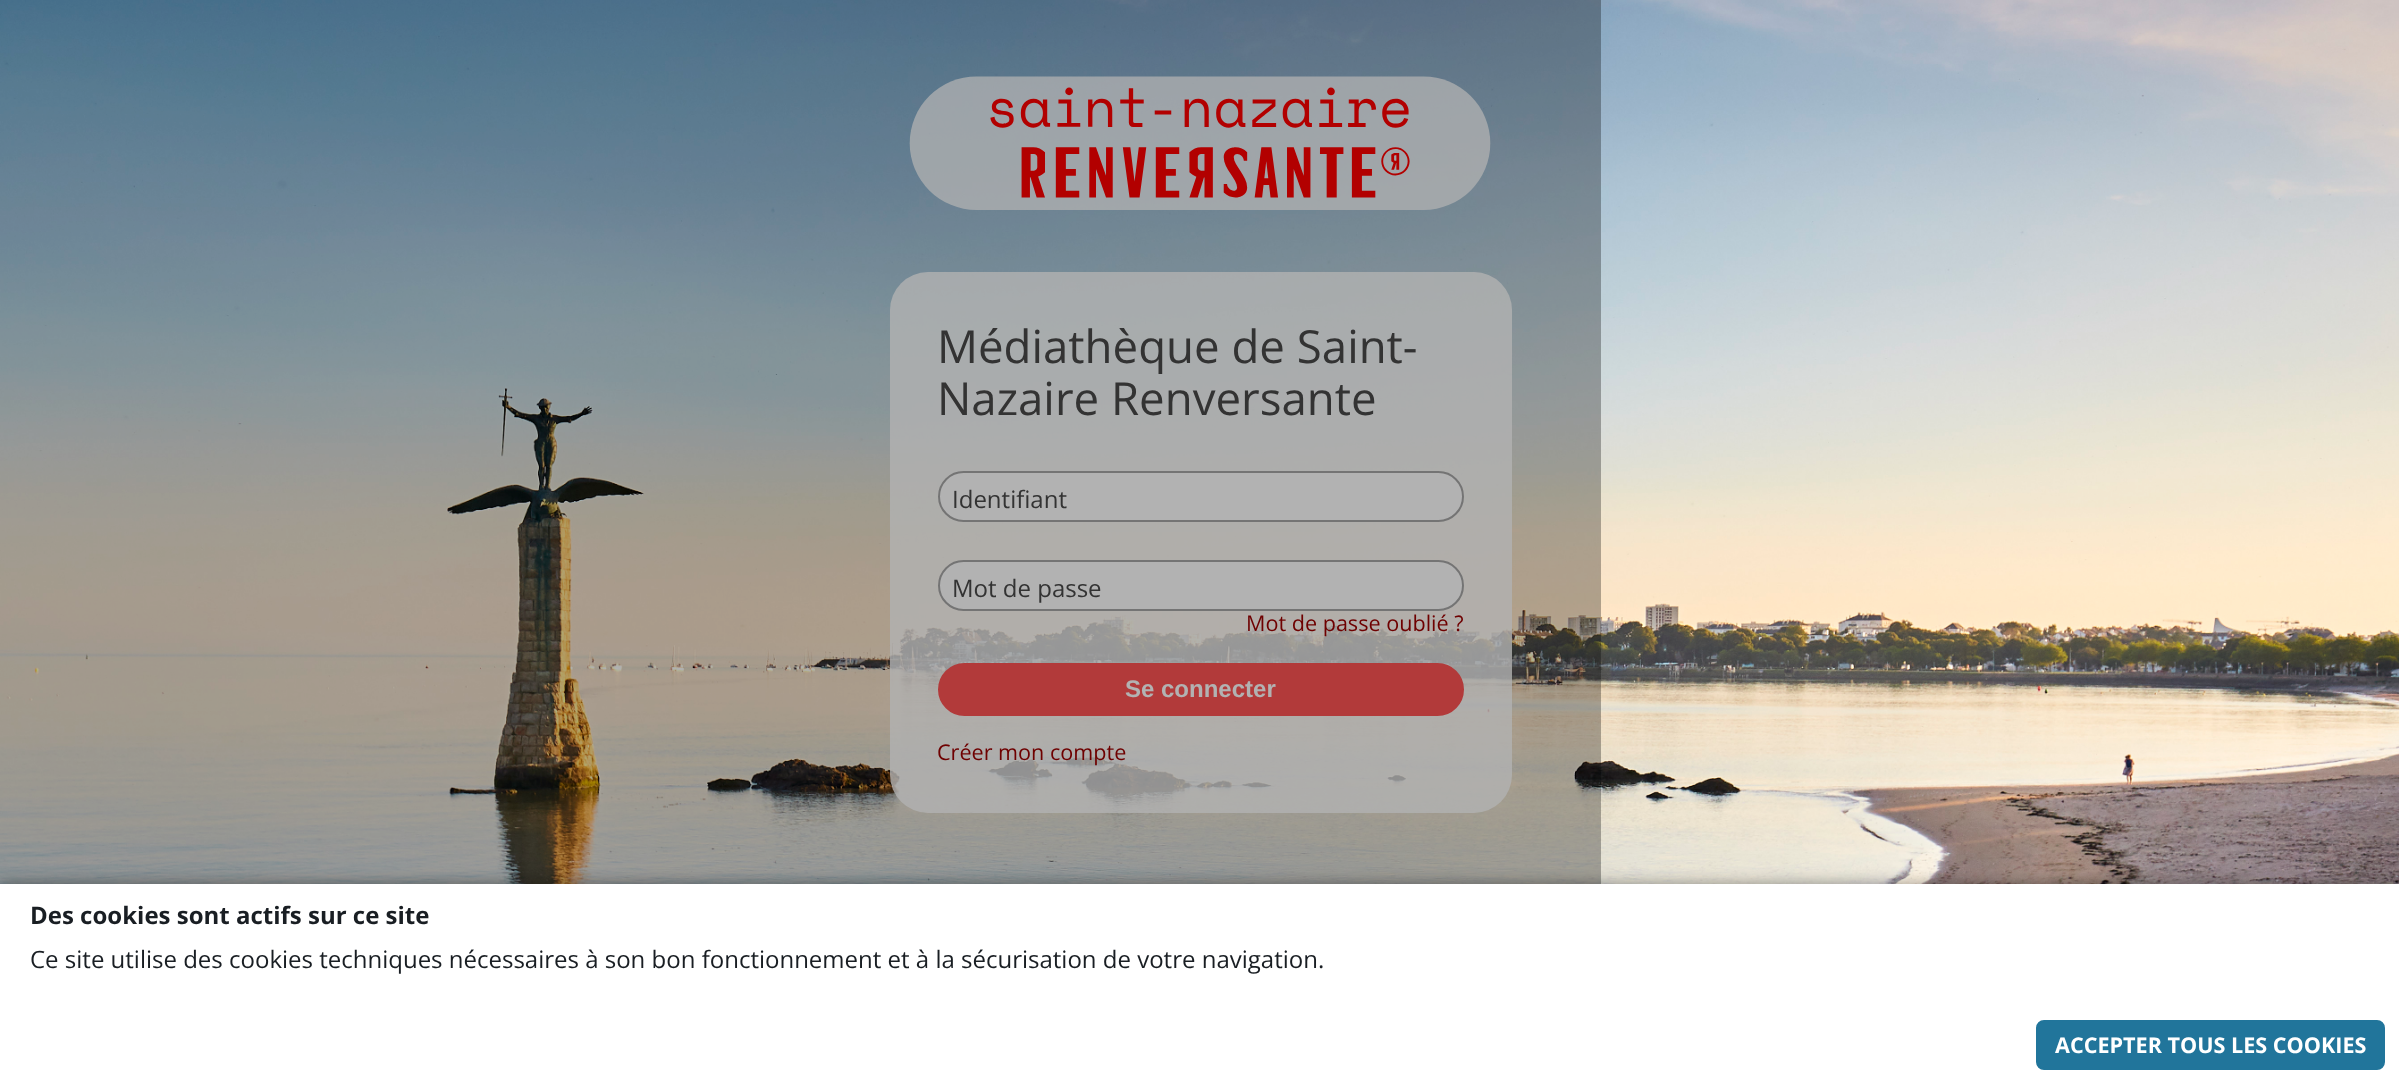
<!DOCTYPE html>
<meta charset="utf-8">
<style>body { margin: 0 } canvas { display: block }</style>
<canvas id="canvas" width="2399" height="1084"></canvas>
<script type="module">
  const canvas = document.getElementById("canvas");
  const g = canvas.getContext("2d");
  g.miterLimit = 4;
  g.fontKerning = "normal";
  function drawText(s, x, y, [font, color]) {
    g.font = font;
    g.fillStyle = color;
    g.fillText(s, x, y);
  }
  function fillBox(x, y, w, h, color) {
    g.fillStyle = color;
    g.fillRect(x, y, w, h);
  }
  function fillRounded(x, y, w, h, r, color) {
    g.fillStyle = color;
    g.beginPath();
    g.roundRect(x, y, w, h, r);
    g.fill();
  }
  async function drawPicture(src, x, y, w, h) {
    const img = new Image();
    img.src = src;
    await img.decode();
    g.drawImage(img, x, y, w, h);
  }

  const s1 = ["45.6px Open Sans", "#4A4A4A"];
  const s2 = ["24px Open Sans", "#4A4A4A"];
  const s3 = ["21.6px Open Sans", "#9E0000"];
  const s4 = ["bold 24px Liberation Sans", "#FFFFFF"];
  const s5 = ["bold 24px Open Sans", "#191E23"];
  const s6 = ["24px Open Sans", "#191E23"];
  const s7 = ["bold 21.6px Open Sans", "#FFFFFF"];

  fillBox(0, 0, 2399, 1084, "#FFFFFF");
  await drawPicture("pic1.png", 0, 0, 2399, 884);
  await drawPicture("pic2.png", 909, 76, 582, 134);
  fillRounded(890, 272, 622, 541, 38, "rgba(255, 255, 255, 0.8)");
  drawText("Médiathèque de Saint-", 937, 363, s1);
  drawText("Nazaire Renversante", 937, 415, s1);
  g.fillStyle = "#FFFFFF";
  g.beginPath();
  g.roundRect(939, 472, 524, 49, 24.5);
  g.fill();
  g.strokeStyle = "#A7A7A7";
  g.lineWidth = 2;
  g.stroke();
  drawText("Identifiant", 952, 508, s2);
  g.fillStyle = "#FFFFFF";
  g.beginPath();
  g.roundRect(939, 561, 524, 49, 24.5);
  g.fill();
  g.stroke();
  drawText("Mot de passe", 952, 597, s2);
  drawText("Mot de passe oublié ?", 1246, 631, s3);
  g.fillStyle = "#FF5454";
  g.beginPath();
  g.roundRect(939.5, 664.5, 523, 50, 25);
  g.fill();
  g.strokeStyle = "#FF5454";
  g.lineWidth = 3;
  g.stroke();
  drawText("Se connecter", 1125, 697, s4);
  drawText("Créer mon compte", 937, 760, s3);
  fillBox(0, 0, 1601, 884, "rgba(0, 0, 0, 0.3)");
  g.fillStyle = "rgba(0, 0, 0, 0.4)";
  g.filter = "blur(7.5px)";
  g.beginPath();
  g.rect(0, 884, 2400, 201);
  g.fill();
  g.filter = "none";
  fillBox(0, 884, 2399, 200, "#FFFFFF");
  drawText("Des cookies sont actifs sur ce site", 30, 924, s5);
  drawText("Ce site utilise des cookies techniques nécessaires à son bon fonctionnement et à la sécurisation de votre navigation.", 30, 968, s6);
  g.fillStyle = "#21759B";
  g.beginPath();
  g.roundRect(2037, 1021, 347, 48, 7);
  g.fill();
  g.strokeStyle = "#21759B";
  g.lineWidth = 2;
  g.stroke();
  drawText("ACCEPTER TOUS LES COOKIES", 2055, 1053, s7);
</script>
